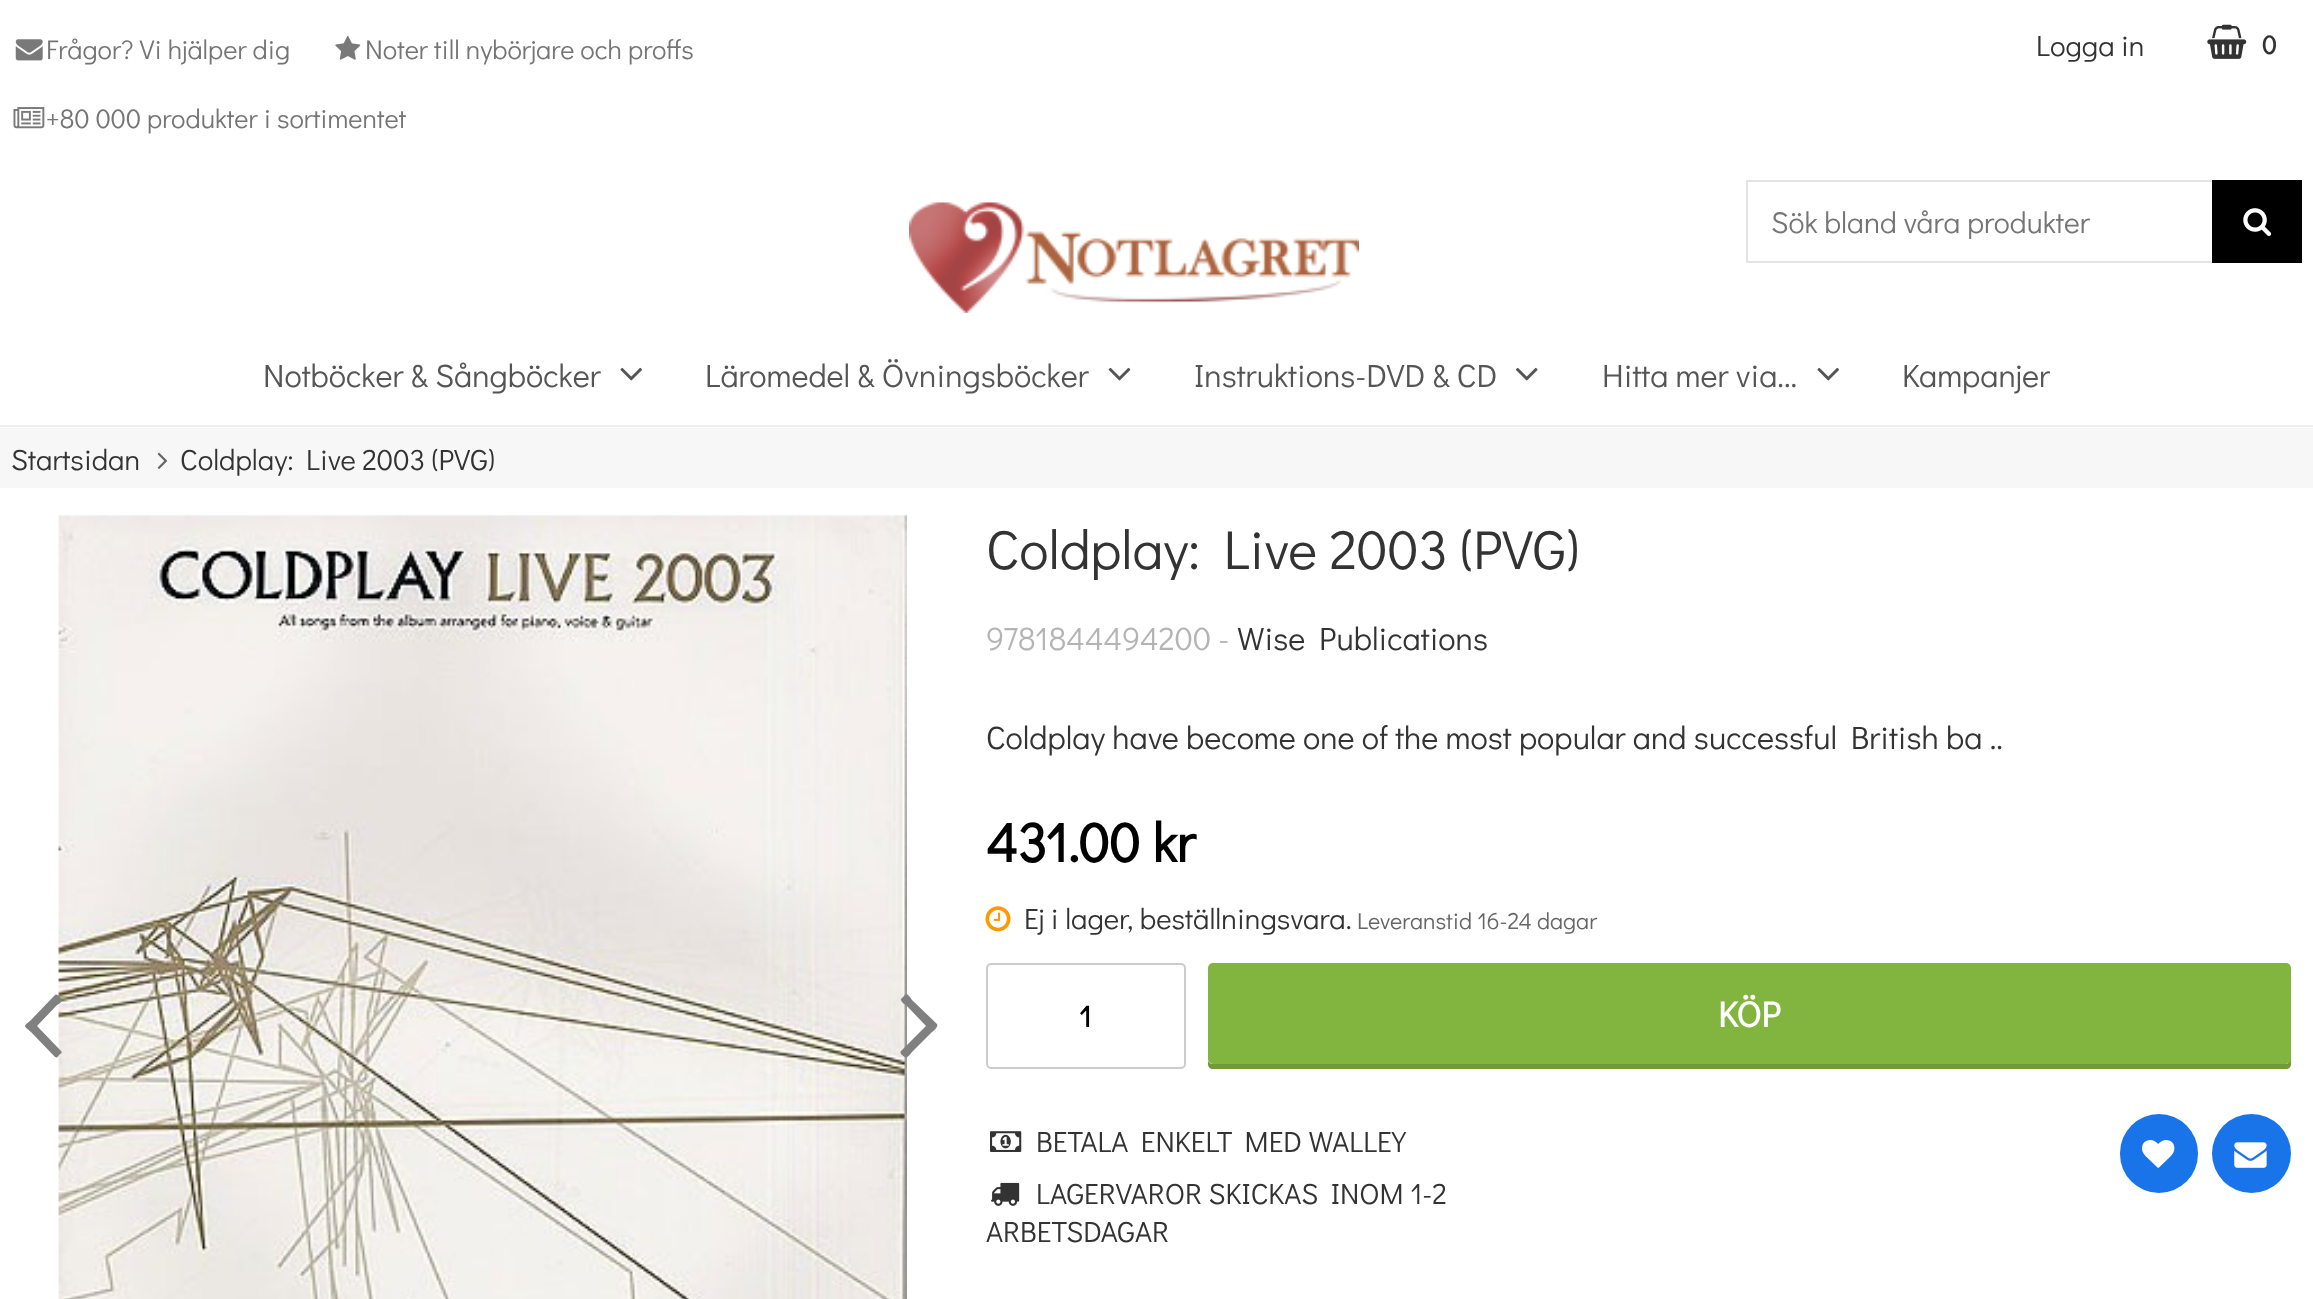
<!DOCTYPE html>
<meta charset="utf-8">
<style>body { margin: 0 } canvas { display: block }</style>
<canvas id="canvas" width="2313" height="1299"></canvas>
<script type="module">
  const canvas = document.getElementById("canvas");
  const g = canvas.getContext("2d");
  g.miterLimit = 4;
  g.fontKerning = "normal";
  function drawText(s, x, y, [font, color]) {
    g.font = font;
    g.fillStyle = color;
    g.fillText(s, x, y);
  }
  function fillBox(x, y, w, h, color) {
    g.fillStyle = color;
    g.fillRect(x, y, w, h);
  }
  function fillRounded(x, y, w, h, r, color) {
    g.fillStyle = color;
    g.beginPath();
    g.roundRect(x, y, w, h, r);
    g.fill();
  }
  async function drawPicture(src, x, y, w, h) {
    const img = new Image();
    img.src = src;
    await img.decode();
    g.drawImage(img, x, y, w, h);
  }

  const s1 = ["27px Didact Gothic", "#757575"];
  const s2 = ["29.2px Didact Gothic", "#333333"];
  const s3 = ["bold 26px Didact Gothic", "#333333"];
  const s4 = ["30px Didact Gothic", "#757575"];
  const s5 = ["32.4px Didact Gothic", "#555555"];
  const s6 = ["55px Didact Gothic", "#333333"];
  const s7 = ["32.4px Didact Gothic", "#B4B4B4"];
  const s8 = ["32.4px Didact Gothic", "#333333"];
  const s9 = ["bold 55px Didact Gothic", "#000000"];
  const s10 = ["23.25px Didact Gothic", "#666666"];
  const s11 = ["bold 30px Didact Gothic", "#000000"];
  const s12 = ["bold 36px Didact Gothic", "#FFFFFF"];

  fillBox(0, 0, 2313, 1299, "#FFFFFF");
  await drawPicture("pic1.png", 15, 39, 28, 22);
  drawText("Frågor? Vi hjälper dig", 46, 59, s1);
  await drawPicture("pic2.png", 335, 35, 26, 25);
  drawText("Noter till nybörjare och proffs", 365, 59, s1);
  await drawPicture("pic3.png", 13, 107, 32, 22);
  drawText("+80 000 produkter i sortimentet", 46, 128, s1);
  drawText("Logga in", 2036, 56, s2);
  await drawPicture("pic4.png", 2207, 24, 40, 35);
  drawText("0", 2262, 54, s3);
  await drawPicture("pic5.png", 909, 202, 450, 111);
  g.strokeStyle = "#E4E4E4";
  g.lineWidth = 2;
  g.strokeRect(1747, 181, 554, 81);
  drawText("Sök bland våra produkter", 1771, 233, s4);
  fillBox(2212, 180, 90, 83, "#000000");
  await drawPicture("pic6.png", 2243, 208, 29, 28);
  fillBox(0, 425, 2313, 2, "#EFEFEF");
  drawText("Notböcker & Sångböcker", 263, 387, s5);
  await drawPicture("pic7.png", 620, 367, 22, 14);
  drawText("Läromedel & Övningsböcker", 705, 387, s5);
  await drawPicture("pic8.png", 1108, 367, 23, 14);
  drawText("Instruktions-DVD & CD", 1194, 387, s5);
  await drawPicture("pic9.png", 1516, 367, 22, 14);
  drawText("Hitta mer via...", 1602, 387, s5);
  await drawPicture("pic7.png", 1817, 367, 22, 14);
  drawText("Kampanjer", 1902, 387, s5);
  fillBox(0, 428, 2313, 60, "#F7F7F7");
  drawText("Startsidan", 11, 470, s2);
  await drawPicture("pic10.png", 157, 452, 11, 17);
  drawText("Coldplay: Live 2003 (PVG)", 180, 470, s2);
  await drawPicture("pic11.png", 58, 514, 849, 785);
  g.fillStyle = "#808080";
  g.beginPath();
  g.moveTo(61, 998);
  g.bezierCurveTo(64, 1001, 58, 1005, 57, 1005);
  g.lineTo(37, 1026);
  g.lineTo(61, 1051);
  g.bezierCurveTo(63, 1053, 60, 1054, 59, 1055);
  g.bezierCurveTo(58, 1057, 57, 1058, 55, 1057);
  g.lineTo(31, 1032);
  g.bezierCurveTo(23, 1025, 23, 1027, 31, 1020);
  g.lineTo(55, 995);
  g.bezierCurveTo(57, 993, 60, 997, 61, 998);
  g.closePath();
  g.fill();
  g.beginPath();
  g.moveTo(937, 1024);
  g.bezierCurveTo(939, 1027, 932, 1032, 932, 1032);
  g.lineTo(912, 1052);
  g.bezierCurveTo(912, 1052, 907, 1059, 905, 1057);
  g.bezierCurveTo(903, 1056, 899, 1053, 901, 1051);
  g.lineTo(926, 1026);
  g.lineTo(906, 1005);
  g.bezierCurveTo(905, 1005, 900, 1001, 901, 999);
  g.lineTo(904, 996);
  g.bezierCurveTo(907, 992, 909, 996, 912, 1000);
  g.closePath();
  g.fill();
  drawText("Coldplay: Live 2003 (PVG)", 986, 569, s6);
  drawText("9781844494200 -", 986, 650, s7);
  drawText("Wise Publications", 1237, 650, s8);
  drawText("Coldplay have become one of the most popular and successful British ba ..", 986, 749, s8);
  drawText("431.00 kr", 986, 862, s9);
  await drawPicture("pic12.png", 985, 906, 26, 26);
  drawText("Ej i lager, beställningsvara.", 1024, 929, s2);
  drawText("Leveranstid 16-24 dagar", 1357, 929, s10);
  g.beginPath();
  g.roundRect(987, 964, 198, 104, 4);
  g.strokeStyle = "#CCCCCC";
  g.stroke();
  drawText("1", 1079, 1027, s11);
  g.fillStyle = "#6F9A37";
  g.beginPath();
  g.moveTo(1208, 971);
  g.lineTo(1208, 1064);
  g.bezierCurveTo(1208, 1067, 1210, 1069, 1213, 1069);
  g.lineTo(2286, 1069);
  g.bezierCurveTo(2289, 1069, 2291, 1067, 2291, 1064);
  g.lineTo(2291, 973);
  g.lineTo(2290, 971);
  g.lineTo(2290, 1060);
  g.bezierCurveTo(2290, 1062, 2288, 1064, 2286, 1064);
  g.lineTo(1213, 1064);
  g.bezierCurveTo(1210, 1064, 1208, 1062, 1208, 1060);
  g.closePath();
  g.fill();
  fillRounded(1208, 963, 1083, 101, 5, "#82B440");
  drawText("KÖP", 1718, 1027, s12);
  await drawPicture("pic13.png", 990, 1131, 32, 21);
  drawText("BETALA ENKELT MED WALLEY", 1036, 1152, s2);
  await drawPicture("pic14.png", 991, 1182, 29, 24);
  drawText("LAGERVAROR SKICKAS INOM 1-2", 1036, 1204, s2);
  drawText("ARBETSDAGAR", 986, 1242, s2);
  fillRounded(2120, 1114, 78, 79, 39, "#1A74E9");
  await drawPicture("pic15.png", 2142, 1140, 33, 28);
  g.beginPath();
  g.arc(2251.5, 1153.5, 39.5, 0, Math.PI * 2);
  g.fill();
  await drawPicture("pic16.png", 2234, 1142, 33, 26);
</script>
